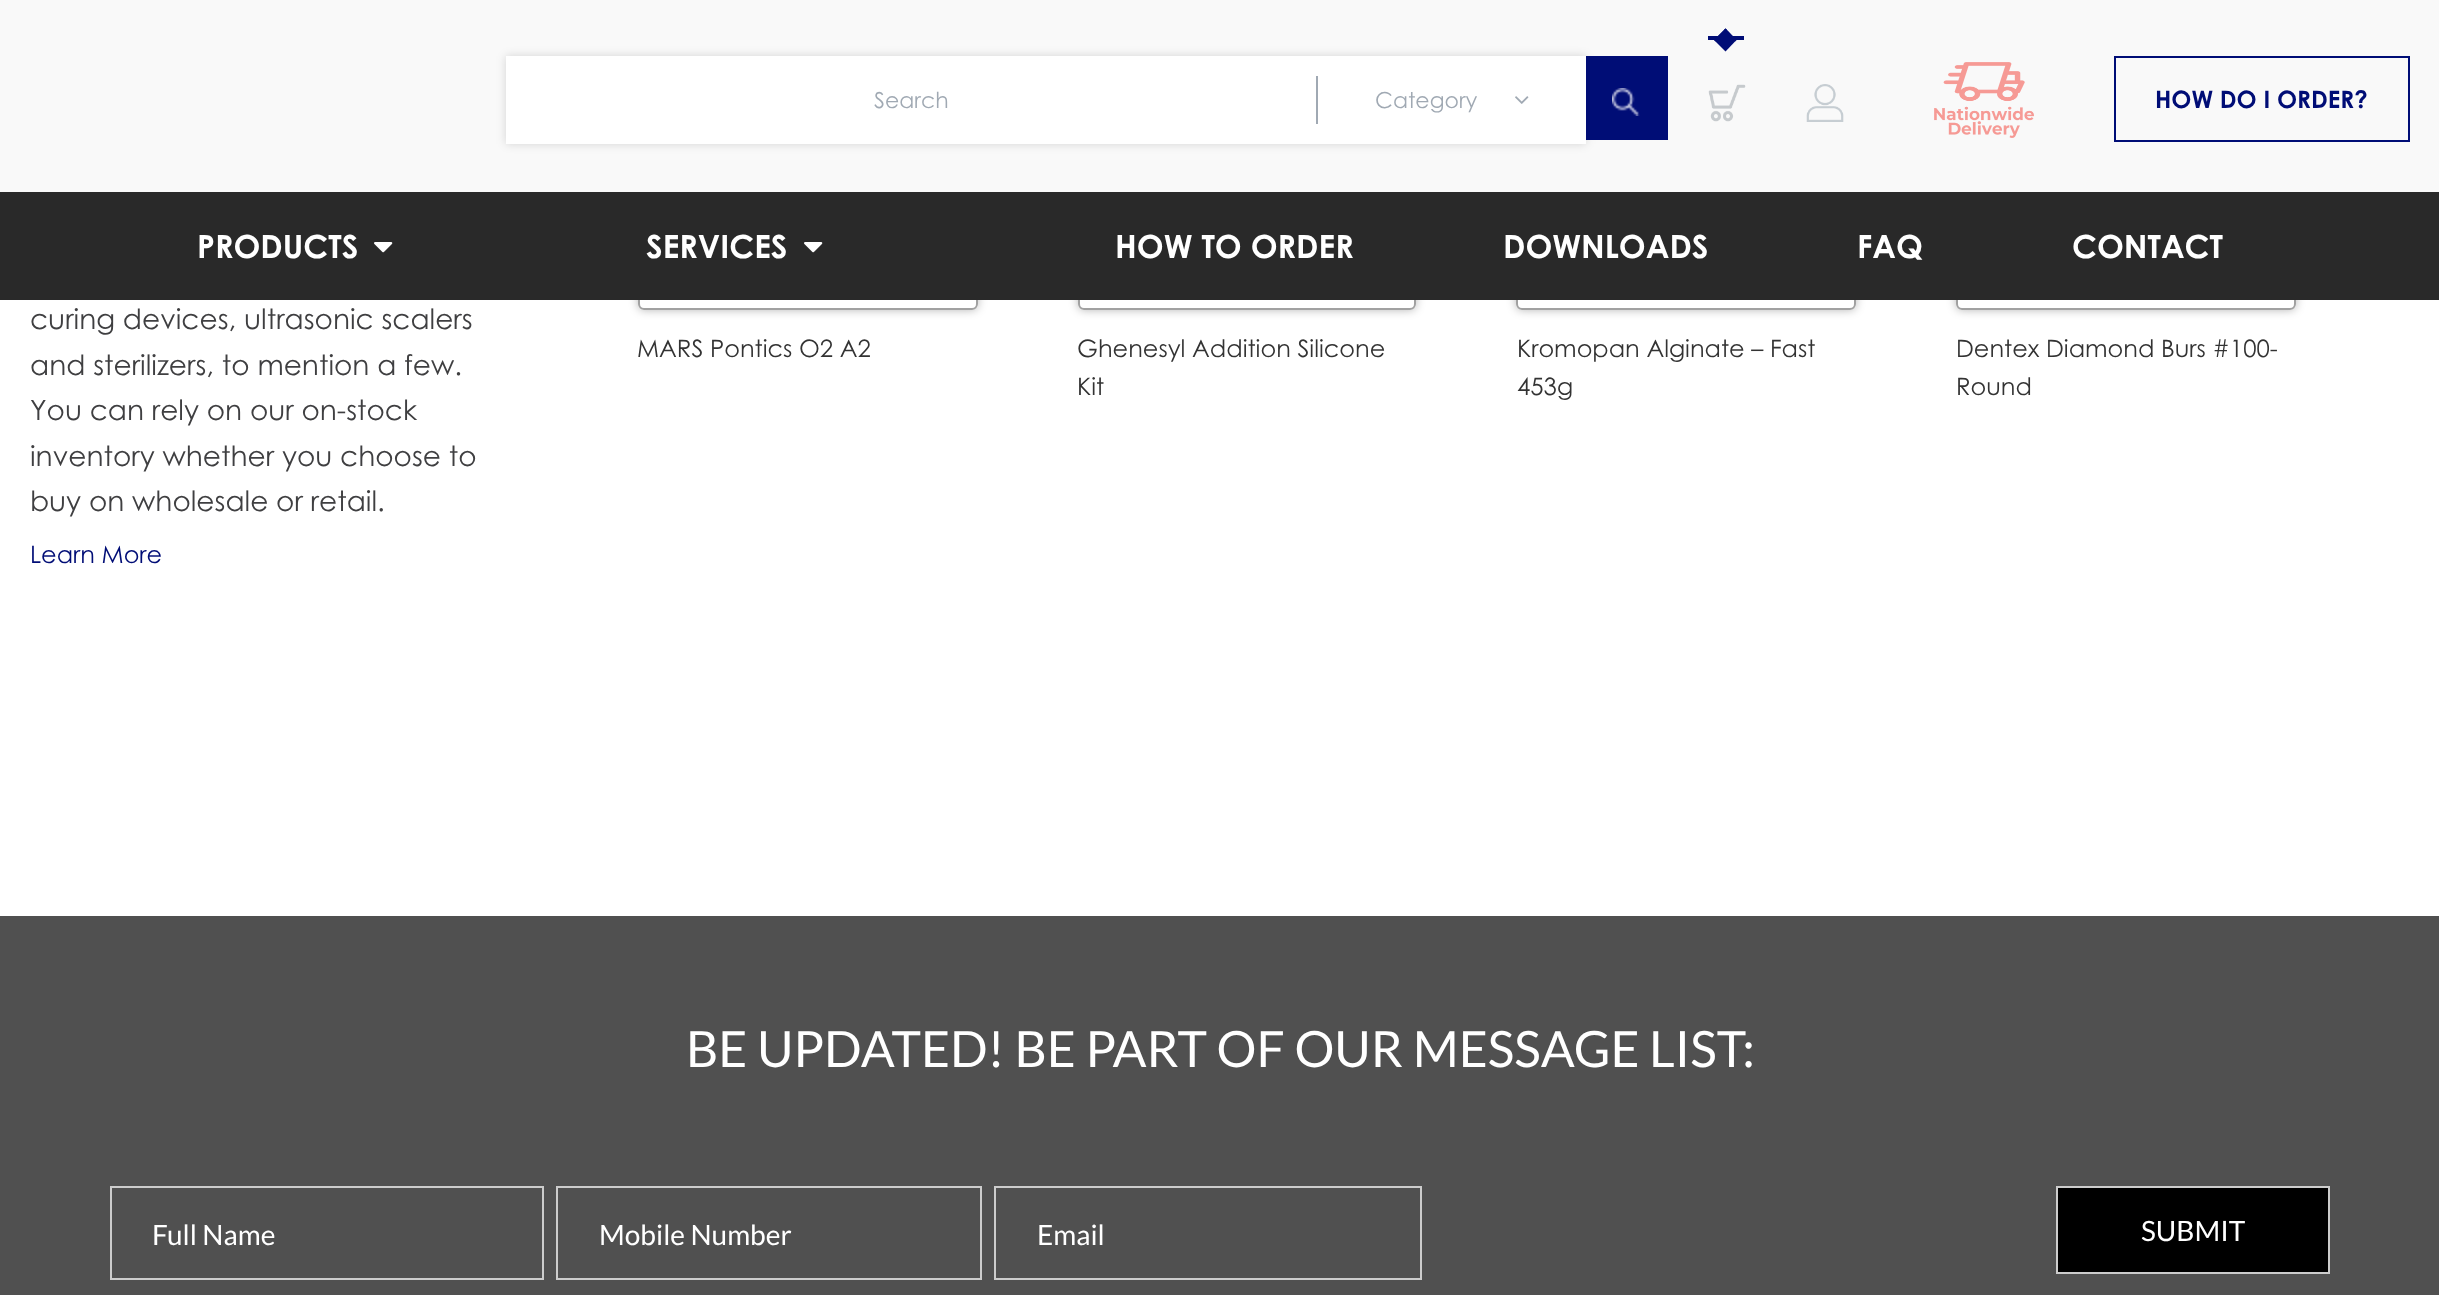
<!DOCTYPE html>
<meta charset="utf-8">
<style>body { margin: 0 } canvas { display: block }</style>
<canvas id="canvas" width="2439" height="1295"></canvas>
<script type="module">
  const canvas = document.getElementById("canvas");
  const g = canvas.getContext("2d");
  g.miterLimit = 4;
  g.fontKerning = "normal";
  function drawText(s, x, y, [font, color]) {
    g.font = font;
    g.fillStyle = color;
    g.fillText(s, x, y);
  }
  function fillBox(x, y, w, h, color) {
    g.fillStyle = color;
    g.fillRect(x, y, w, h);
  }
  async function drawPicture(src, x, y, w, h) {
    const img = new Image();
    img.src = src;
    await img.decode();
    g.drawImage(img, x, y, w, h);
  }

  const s1 = ["22px Century Gothic", "#A0A9B3"];
  const s2 = ["bold 24px Century Gothic", "#000D76"];
  const s3 = ["bold 32px Century Gothic", "#FFFFFF"];
  const s4 = ["28px Century Gothic", "#3F3F41"];
  const s5 = ["24px Century Gothic", "#000D76"];
  const s6 = ["24px Century Gothic", "#333333"];
  const s7 = ["50px Lato", "#FFFFFF"];
  const s8 = ["28px Lato", "#FFFFFF"];

  fillBox(0, 0, 2439, 1295, "#FFFFFF");
  g.save();
  g.beginPath();
  g.moveTo(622, 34);
  g.lineTo(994, 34);
  g.lineTo(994, 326);
  g.lineTo(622, 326);
  g.closePath();
  g.moveTo(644, 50);
  g.lineTo(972, 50);
  g.bezierCurveTo(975.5, 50, 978, 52.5, 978, 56);
  g.lineTo(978, 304);
  g.bezierCurveTo(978, 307.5, 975.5, 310, 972, 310);
  g.lineTo(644, 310);
  g.bezierCurveTo(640.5, 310, 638, 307.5, 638, 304);
  g.lineTo(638, 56);
  g.bezierCurveTo(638, 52.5, 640.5, 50, 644, 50);
  g.closePath();
  g.clip("evenodd");
  g.fillStyle = "rgba(0, 0, 0, 0.29)";
  g.filter = "blur(5px)";
  g.beginPath();
  g.roundRect(638, 50, 340, 260, 6);
  g.fill();
  g.filter = "none";
  g.restore();
  g.beginPath();
  g.roundRect(639, 51, 338, 258, 5);
  g.strokeStyle = "#A1A1A1";
  g.lineWidth = 2;
  g.stroke();
  g.save();
  g.beginPath();
  g.moveTo(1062, 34);
  g.lineTo(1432, 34);
  g.lineTo(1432, 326);
  g.lineTo(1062, 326);
  g.closePath();
  g.moveTo(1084, 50);
  g.lineTo(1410, 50);
  g.bezierCurveTo(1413.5, 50, 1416, 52.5, 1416, 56);
  g.lineTo(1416, 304);
  g.bezierCurveTo(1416, 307.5, 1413.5, 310, 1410, 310);
  g.lineTo(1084, 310);
  g.bezierCurveTo(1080.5, 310, 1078, 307.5, 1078, 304);
  g.lineTo(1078, 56);
  g.bezierCurveTo(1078, 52.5, 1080.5, 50, 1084, 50);
  g.closePath();
  g.clip("evenodd");
  g.fillStyle = "rgba(0, 0, 0, 0.29)";
  g.filter = "blur(5px)";
  g.beginPath();
  g.roundRect(1078, 50, 338, 260, 6);
  g.fill();
  g.filter = "none";
  g.restore();
  g.beginPath();
  g.roundRect(1079, 51, 336, 258, 5);
  g.stroke();
  g.save();
  g.beginPath();
  g.moveTo(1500, 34);
  g.lineTo(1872, 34);
  g.lineTo(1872, 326);
  g.lineTo(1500, 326);
  g.closePath();
  g.moveTo(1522, 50);
  g.lineTo(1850, 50);
  g.bezierCurveTo(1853.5, 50, 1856, 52.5, 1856, 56);
  g.lineTo(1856, 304);
  g.bezierCurveTo(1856, 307.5, 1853.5, 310, 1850, 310);
  g.lineTo(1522, 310);
  g.bezierCurveTo(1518.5, 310, 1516, 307.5, 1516, 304);
  g.lineTo(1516, 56);
  g.bezierCurveTo(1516, 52.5, 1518.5, 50, 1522, 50);
  g.closePath();
  g.clip("evenodd");
  g.fillStyle = "rgba(0, 0, 0, 0.29)";
  g.filter = "blur(5px)";
  g.beginPath();
  g.roundRect(1516, 50, 340, 260, 6);
  g.fill();
  g.filter = "none";
  g.restore();
  g.beginPath();
  g.roundRect(1517, 51, 338, 258, 5);
  g.stroke();
  g.save();
  g.beginPath();
  g.moveTo(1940, 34);
  g.lineTo(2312, 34);
  g.lineTo(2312, 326);
  g.lineTo(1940, 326);
  g.closePath();
  g.moveTo(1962, 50);
  g.lineTo(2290, 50);
  g.bezierCurveTo(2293.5, 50, 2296, 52.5, 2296, 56);
  g.lineTo(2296, 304);
  g.bezierCurveTo(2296, 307.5, 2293.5, 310, 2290, 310);
  g.lineTo(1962, 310);
  g.bezierCurveTo(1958.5, 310, 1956, 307.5, 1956, 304);
  g.lineTo(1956, 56);
  g.bezierCurveTo(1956, 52.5, 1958.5, 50, 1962, 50);
  g.closePath();
  g.clip("evenodd");
  g.fillStyle = "rgba(0, 0, 0, 0.29)";
  g.filter = "blur(5px)";
  g.beginPath();
  g.roundRect(1956, 50, 340, 260, 6);
  g.fill();
  g.filter = "none";
  g.restore();
  g.beginPath();
  g.roundRect(1957, 51, 338, 258, 5);
  g.stroke();
  fillBox(0, 0, 2439, 192, "#F9F9F9");
  g.fillStyle = "rgba(0, 0, 0, 0.15)";
  g.filter = "blur(5px)";
  g.beginPath();
  g.rect(506, 56, 1080, 88);
  g.fill();
  g.filter = "none";
  fillBox(506, 56, 1080, 88, "#FFFFFF");
  drawText("Search", 874, 108, s1);
  fillBox(1316, 76, 2, 48, "#A0A9B3");
  drawText("Category", 1375, 108, s1);
  await drawPicture("pic1.png", 1515, 96, 14, 8);
  fillBox(1586, 56, 82, 84, "#000D76");
  await drawPicture("pic2.png", 1612, 88, 28, 28);
  fillBox(1708, 36, 36, 4, "#000D76");
  g.beginPath();
  g.moveTo(1725.5, 28.5);
  g.lineTo(1736.5, 40);
  g.lineTo(1725.5, 51.5);
  g.lineTo(1714, 40);
  g.closePath();
  g.fill();
  g.beginPath();
  g.moveTo(1725.5, 28.5);
  g.lineTo(1736.5, 40);
  g.lineTo(1735, 41.5);
  g.lineTo(1724, 30);
  g.closePath();
  g.fill();
  g.beginPath();
  g.moveTo(1725.5, 28.5);
  g.lineTo(1727, 30);
  g.lineTo(1715.5, 41.5);
  g.lineTo(1714, 40);
  g.closePath();
  g.fill();
  await drawPicture("pic3.png", 1708, 84, 38, 38);
  await drawPicture("pic4.png", 1806, 84, 38, 38);
  await drawPicture("pic5.png", 1934, 62, 100, 76);
  g.strokeStyle = "#000D76";
  g.strokeRect(2115, 57, 294, 84);
  drawText("HOW DO I ORDER?", 2155, 108, s2);
  fillBox(0, 192, 2439, 108, "#292929");
  drawText("PRODUCTS", 197, 258, s3);
  await drawPicture("pic6.png", 374, 242, 19, 11);
  drawText("SERVICES", 646, 258, s3);
  await drawPicture("pic6.png", 804, 242, 19, 11);
  drawText("HOW TO ORDER", 1115, 258, s3);
  drawText("DOWNLOADS", 1503, 258, s3);
  drawText("FAQ", 1857, 258, s3);
  drawText("CONTACT", 2072, 258, s3);
  drawText("curing devices, ultrasonic scalers", 30, 329, s4);
  drawText("and sterilizers, to mention a few.", 30, 375, s4);
  drawText("You can rely on our on-stock", 30, 420, s4);
  drawText("inventory whether you choose to", 30, 466, s4);
  drawText("buy on wholesale or retail.", 30, 511, s4);
  drawText("Learn More", 30, 563, s5);
  drawText("MARS Pontics O2 A2", 637, 357, s6);
  drawText("Ghenesyl Addition Silicone", 1077, 357, s6);
  drawText("Kit", 1077, 395, s6);
  drawText("Kromopan Alginate – Fast", 1517, 357, s6);
  drawText("453g", 1517, 395, s6);
  drawText("Dentex Diamond Burs #100-", 1956, 357, s6);
  drawText("Round", 1956, 395, s6);
  fillBox(0, 916, 2439, 379, "#505050");
  drawText("BE UPDATED! BE PART OF OUR MESSAGE LIST:", 686, 1067, s7);
  g.strokeStyle = "#CCCCCC";
  g.strokeRect(111, 1187, 432, 92);
  drawText("Full Name", 152, 1245, s8);
  g.strokeRect(557, 1187, 424, 92);
  drawText("Mobile Number", 599, 1245, s8);
  g.strokeRect(995, 1187, 426, 92);
  drawText("Email", 1037, 1245, s8);
  g.fillStyle = "#000000";
  g.beginPath();
  g.rect(2057, 1187, 272, 86);
  g.fill();
  g.stroke();
  drawText("SUBMIT", 2141, 1241, s8);
</script>
